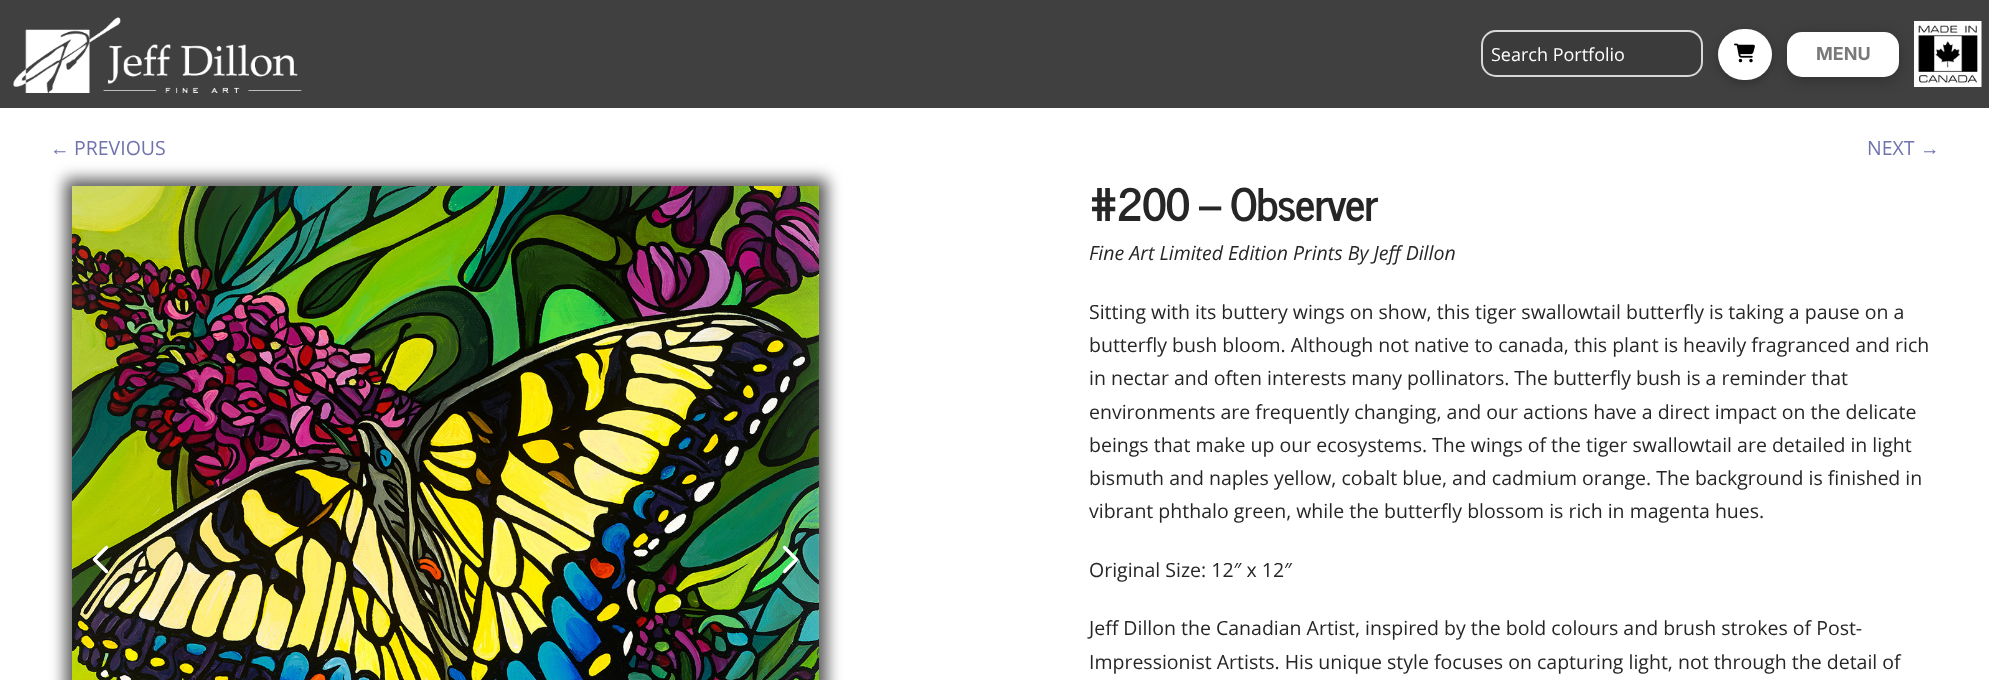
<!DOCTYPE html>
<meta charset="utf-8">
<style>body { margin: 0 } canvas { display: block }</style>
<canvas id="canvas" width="1989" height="680"></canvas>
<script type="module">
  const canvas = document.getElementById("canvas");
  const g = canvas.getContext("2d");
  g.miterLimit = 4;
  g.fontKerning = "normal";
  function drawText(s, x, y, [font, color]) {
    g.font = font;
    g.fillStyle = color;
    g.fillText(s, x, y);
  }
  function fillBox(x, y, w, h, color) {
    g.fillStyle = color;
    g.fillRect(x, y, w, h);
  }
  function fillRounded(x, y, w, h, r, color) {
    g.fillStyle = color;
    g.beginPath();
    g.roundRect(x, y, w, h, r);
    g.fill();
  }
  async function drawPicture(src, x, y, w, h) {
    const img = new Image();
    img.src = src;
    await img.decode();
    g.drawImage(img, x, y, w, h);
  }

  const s1 = ["18px Open Sans", "#FFFFFF"];
  const s2 = ["bold 18px Inter", "#797979"];
  const s3 = ["19.5px Liberation Sans", "#7173AC"];
  const s4 = ["19.5px Open Sans", "#7173AC"];
  const s5 = ["bold 44.5px News Cycle", "#262626"];
  const s6 = ["italic 19.5px Open Sans", "#262626"];
  const s7 = ["19.5px Open Sans", "#262626"];

  fillBox(0, 0, 1989, 680, "#FFFFFF");
  fillBox(0, 0, 1989, 108, "#404040");
  await drawPicture("pic1.png", 13, 17, 289, 76);
  g.fillStyle = "#3B3B3B";
  g.beginPath();
  g.moveTo(1496, 32);
  g.bezierCurveTo(1488, 32, 1482, 38, 1482, 46);
  g.lineTo(1482, 61);
  g.bezierCurveTo(1482, 69, 1488, 75, 1496, 75);
  g.lineTo(1687, 75);
  g.bezierCurveTo(1695, 75, 1701, 69, 1701, 61);
  g.lineTo(1701, 46);
  g.bezierCurveTo(1701, 38, 1695, 32, 1687, 32);
  g.closePath();
  g.fill();
  g.fillStyle = "rgba(0, 0, 0, 0.25)";
  g.filter = "blur(5px)";
  g.beginPath();
  g.roundRect(1718, 32, 54, 51, 25.5);
  g.fill();
  g.filter = "none";
  g.beginPath();
  g.roundRect(1482, 31, 220, 45, 14);
  g.strokeStyle = "#D8D8D8";
  g.lineWidth = 2;
  g.stroke();
  drawText("Search Portfolio", 1491, 61, s1);
  fillRounded(1718, 29, 54, 51, 25.5, "#FFFFFF");
  await drawPicture("pic2.png", 1734, 43, 21, 20);
  await drawPicture("pic3.png", 1914, 21, 68, 66);
  g.fillStyle = "rgba(0, 0, 0, 0.25)";
  g.filter = "blur(7.5px)";
  g.beginPath();
  g.roundRect(1787, 35, 112, 45, 15);
  g.fill();
  g.filter = "none";
  fillRounded(1787, 32, 112, 45, 15, "#FFFFFF");
  drawText("MENU", 1816, 60, s2);
  drawText("←", 50, 155, s3);
  drawText("PREVIOUS", 74, 155, s4);
  drawText("NEXT", 1867, 155, s4);
  drawText("→", 1920, 155, s3);
  g.fillStyle = "#5B5B5B";
  g.filter = "blur(7.5px)";
  g.beginPath();
  g.rect(65, 179, 762, 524);
  g.fill();
  g.filter = "none";
  await drawPicture("pic4.png", 72, 186, 747, 494);
  g.beginPath();
  g.moveTo(106.5, 547.5);
  g.lineTo(94.5, 559.5);
  g.lineTo(106.5, 571.5);
  g.strokeStyle = "#FFFFFF";
  g.lineWidth = 3.4;
  g.lineCap = "round";
  g.lineJoin = "round";
  g.stroke();
  g.beginPath();
  g.moveTo(784.5, 547.5);
  g.lineTo(796.5, 559.5);
  g.lineTo(784.5, 571.5);
  g.stroke();
  g.letterSpacing = "-1.25px";
  drawText("#200 – Observer", 1089, 221, s5);
  g.letterSpacing = "0px";
  drawText("Fine Art Limited Edition Prints By Jeff Dillon", 1089, 260, s6);
  drawText("Sitting with its buttery wings on show, this tiger swallowtail butterfly is taking a pause on a", 1089, 319, s7);
  drawText("butterfly bush bloom. Although not native to canada, this plant is heavily fragranced and rich", 1089, 352, s7);
  drawText("in nectar and often interests many pollinators. The butterfly bush is a reminder that", 1089, 385, s7);
  drawText("environments are frequently changing, and our actions have a direct impact on the delicate", 1089, 419, s7);
  drawText("beings that make up our ecosystems. The wings of the tiger swallowtail are detailed in light", 1089, 452, s7);
  drawText("bismuth and naples yellow, cobalt blue, and cadmium orange. The background is finished in", 1089, 485, s7);
  drawText("vibrant phthalo green, while the butterfly blossom is rich in magenta hues.", 1089, 518, s7);
  drawText("Original Size: 12″ x 12″", 1089, 577, s7);
  drawText("Jeff Dillon the Canadian Artist, inspired by the bold colours and brush strokes of Post-", 1089, 635, s7);
  drawText("Impressionist Artists. His unique style focuses on capturing light, not through the detail of", 1089, 669, s7);
</script>
